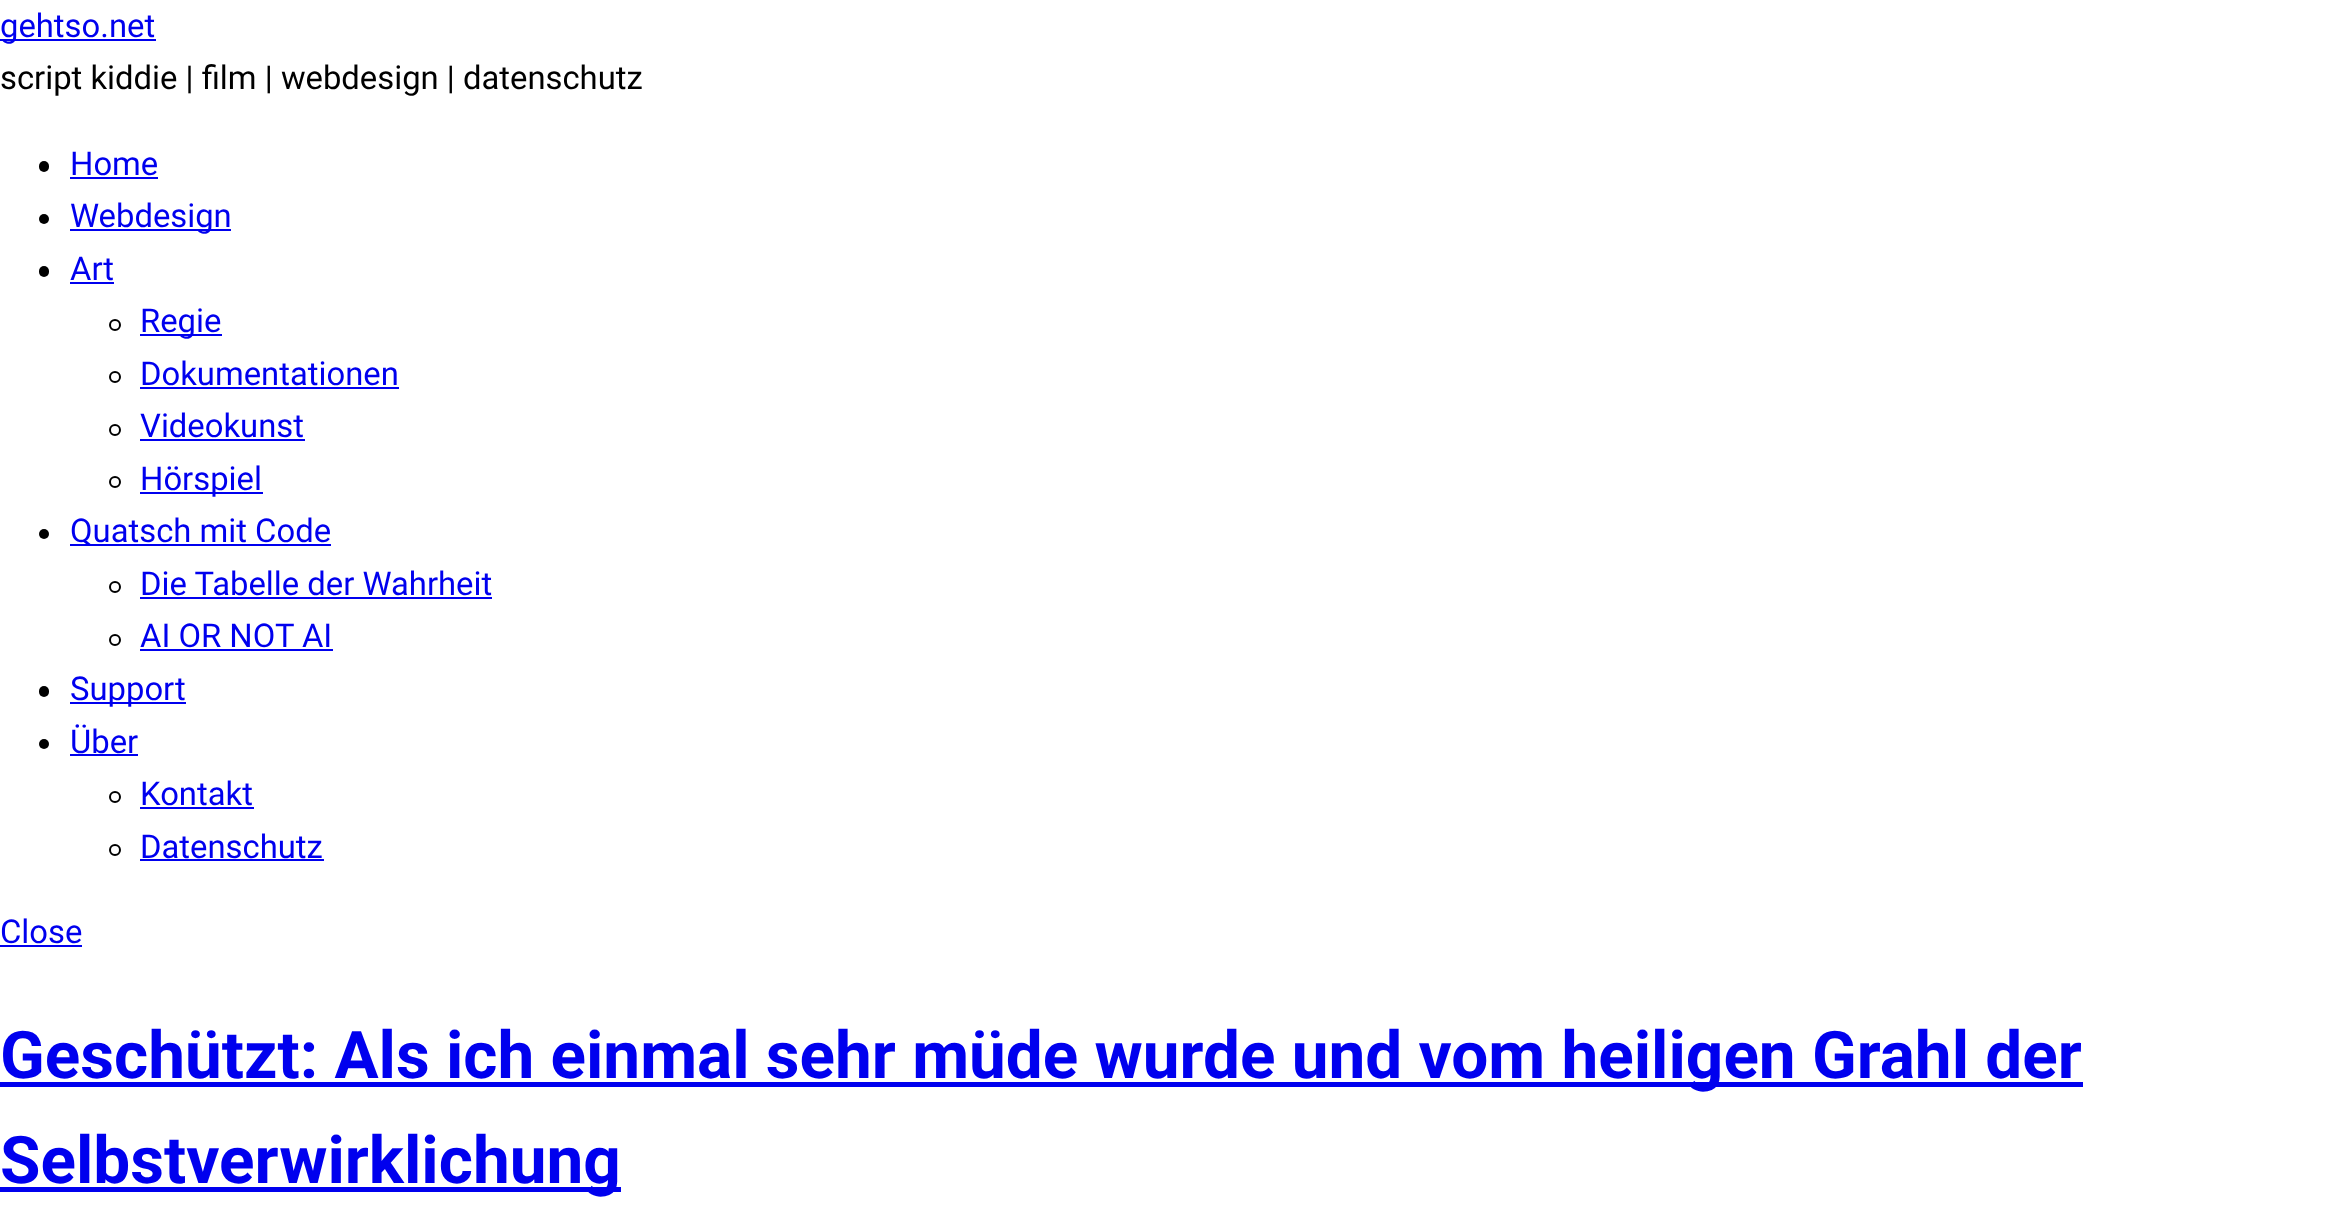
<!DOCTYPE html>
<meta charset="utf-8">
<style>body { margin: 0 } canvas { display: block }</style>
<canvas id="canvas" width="2339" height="1227"></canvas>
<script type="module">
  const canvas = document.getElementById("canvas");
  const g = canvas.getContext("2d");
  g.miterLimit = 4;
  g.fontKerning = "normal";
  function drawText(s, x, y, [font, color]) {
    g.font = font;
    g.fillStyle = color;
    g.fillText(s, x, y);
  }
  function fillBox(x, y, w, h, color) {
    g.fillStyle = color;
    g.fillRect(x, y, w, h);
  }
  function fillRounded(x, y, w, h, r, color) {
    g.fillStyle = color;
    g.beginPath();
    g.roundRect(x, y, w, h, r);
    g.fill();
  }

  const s1 = ["32.8px Roboto", "#0000EE"];
  const s2 = ["32.8px Roboto", "#000000"];
  const s3 = ["bold 65.7px Roboto", "#0000EE"];

  fillBox(0, 0, 2339, 1227, "#FFFFFF");
  fillBox(0, 39, 156, 2, "#0000EE");
  drawText("gehtso.net", 0, 37, s1);
  drawText("script kiddie | film | webdesign | datenschutz", 0, 89, s2);
  fillRounded(39, 161, 10, 11, 5, "#000000");
  drawText("Home", 70, 175, s1);
  fillBox(70, 177, 88, 2, "#0000EE");
  g.fillStyle = "#000000";
  g.beginPath();
  g.arc(44, 219, 5, 0, Math.PI * 2);
  g.fill();
  fillBox(70, 229, 161, 2, "#0000EE");
  drawText("Webdesign", 70, 227, s1);
  fillRounded(39, 266, 10, 11, 5, "#000000");
  drawText("Art", 70, 280, s1);
  fillBox(70, 282, 44, 2, "#0000EE");
  g.beginPath();
  g.arc(115, 325, 5, 0, Math.PI * 2);
  g.strokeStyle = "#000000";
  g.lineWidth = 2;
  g.stroke();
  fillBox(140, 334, 82, 2, "#0000EE");
  drawText("Regie", 140, 332, s1);
  g.beginPath();
  g.arc(115, 377, 5, 0, Math.PI * 2);
  g.stroke();
  drawText("Dokumentationen", 140, 385, s1);
  fillBox(140, 387, 259, 2, "#0000EE");
  g.beginPath();
  g.arc(115, 430, 5, 0, Math.PI * 2);
  g.stroke();
  drawText("Videokunst", 140, 437, s1);
  fillBox(140, 439, 165, 2, "#0000EE");
  g.beginPath();
  g.arc(115, 482, 5, 0, Math.PI * 2);
  g.stroke();
  fillBox(140, 492, 123, 2, "#0000EE");
  drawText("Hörspiel", 140, 490, s1);
  g.fillStyle = "#000000";
  g.beginPath();
  g.arc(44, 534, 5, 0, Math.PI * 2);
  g.fill();
  fillBox(70, 544, 261, 2, "#0000EE");
  drawText("Quatsch mit Code", 70, 542, s1);
  g.beginPath();
  g.arc(115, 587, 5, 0, Math.PI * 2);
  g.stroke();
  drawText("Die Tabelle der Wahrheit", 140, 595, s1);
  fillBox(140, 597, 352, 2, "#0000EE");
  g.beginPath();
  g.arc(115, 640, 5, 0, Math.PI * 2);
  g.stroke();
  drawText("AI OR NOT AI", 140, 647, s1);
  fillBox(140, 649, 193, 2, "#0000EE");
  fillRounded(39, 686, 10, 11, 5, "#000000");
  fillBox(70, 702, 116, 2, "#0000EE");
  drawText("Support", 70, 700, s1);
  g.fillStyle = "#000000";
  g.beginPath();
  g.arc(44, 744, 5, 0, Math.PI * 2);
  g.fill();
  drawText("Über", 70, 753, s1);
  fillBox(70, 754, 68, 2, "#0000EE");
  g.beginPath();
  g.arc(115, 797, 5, 0, Math.PI * 2);
  g.stroke();
  drawText("Kontakt", 140, 805, s1);
  fillBox(140, 807, 114, 2, "#0000EE");
  g.beginPath();
  g.arc(115, 850, 5, 0, Math.PI * 2);
  g.stroke();
  drawText("Datenschutz", 140, 858, s1);
  fillBox(140, 859, 184, 2, "#0000EE");
  drawText("Close", 0, 943, s1);
  fillBox(0, 945, 82, 2, "#0000EE");
  fillBox(0, 1082, 2083, 5, "#0000EE");
  g.wordSpacing = "-0.1px";
  drawText("Geschützt: Als ich einmal sehr müde wurde und vom heiligen Grahl der", 0, 1078, s3);
  fillBox(0, 1187, 621, 5, "#0000EE");
  g.wordSpacing = "0px";
  drawText("Selbstverwirklichung", 0, 1183, s3);
</script>
